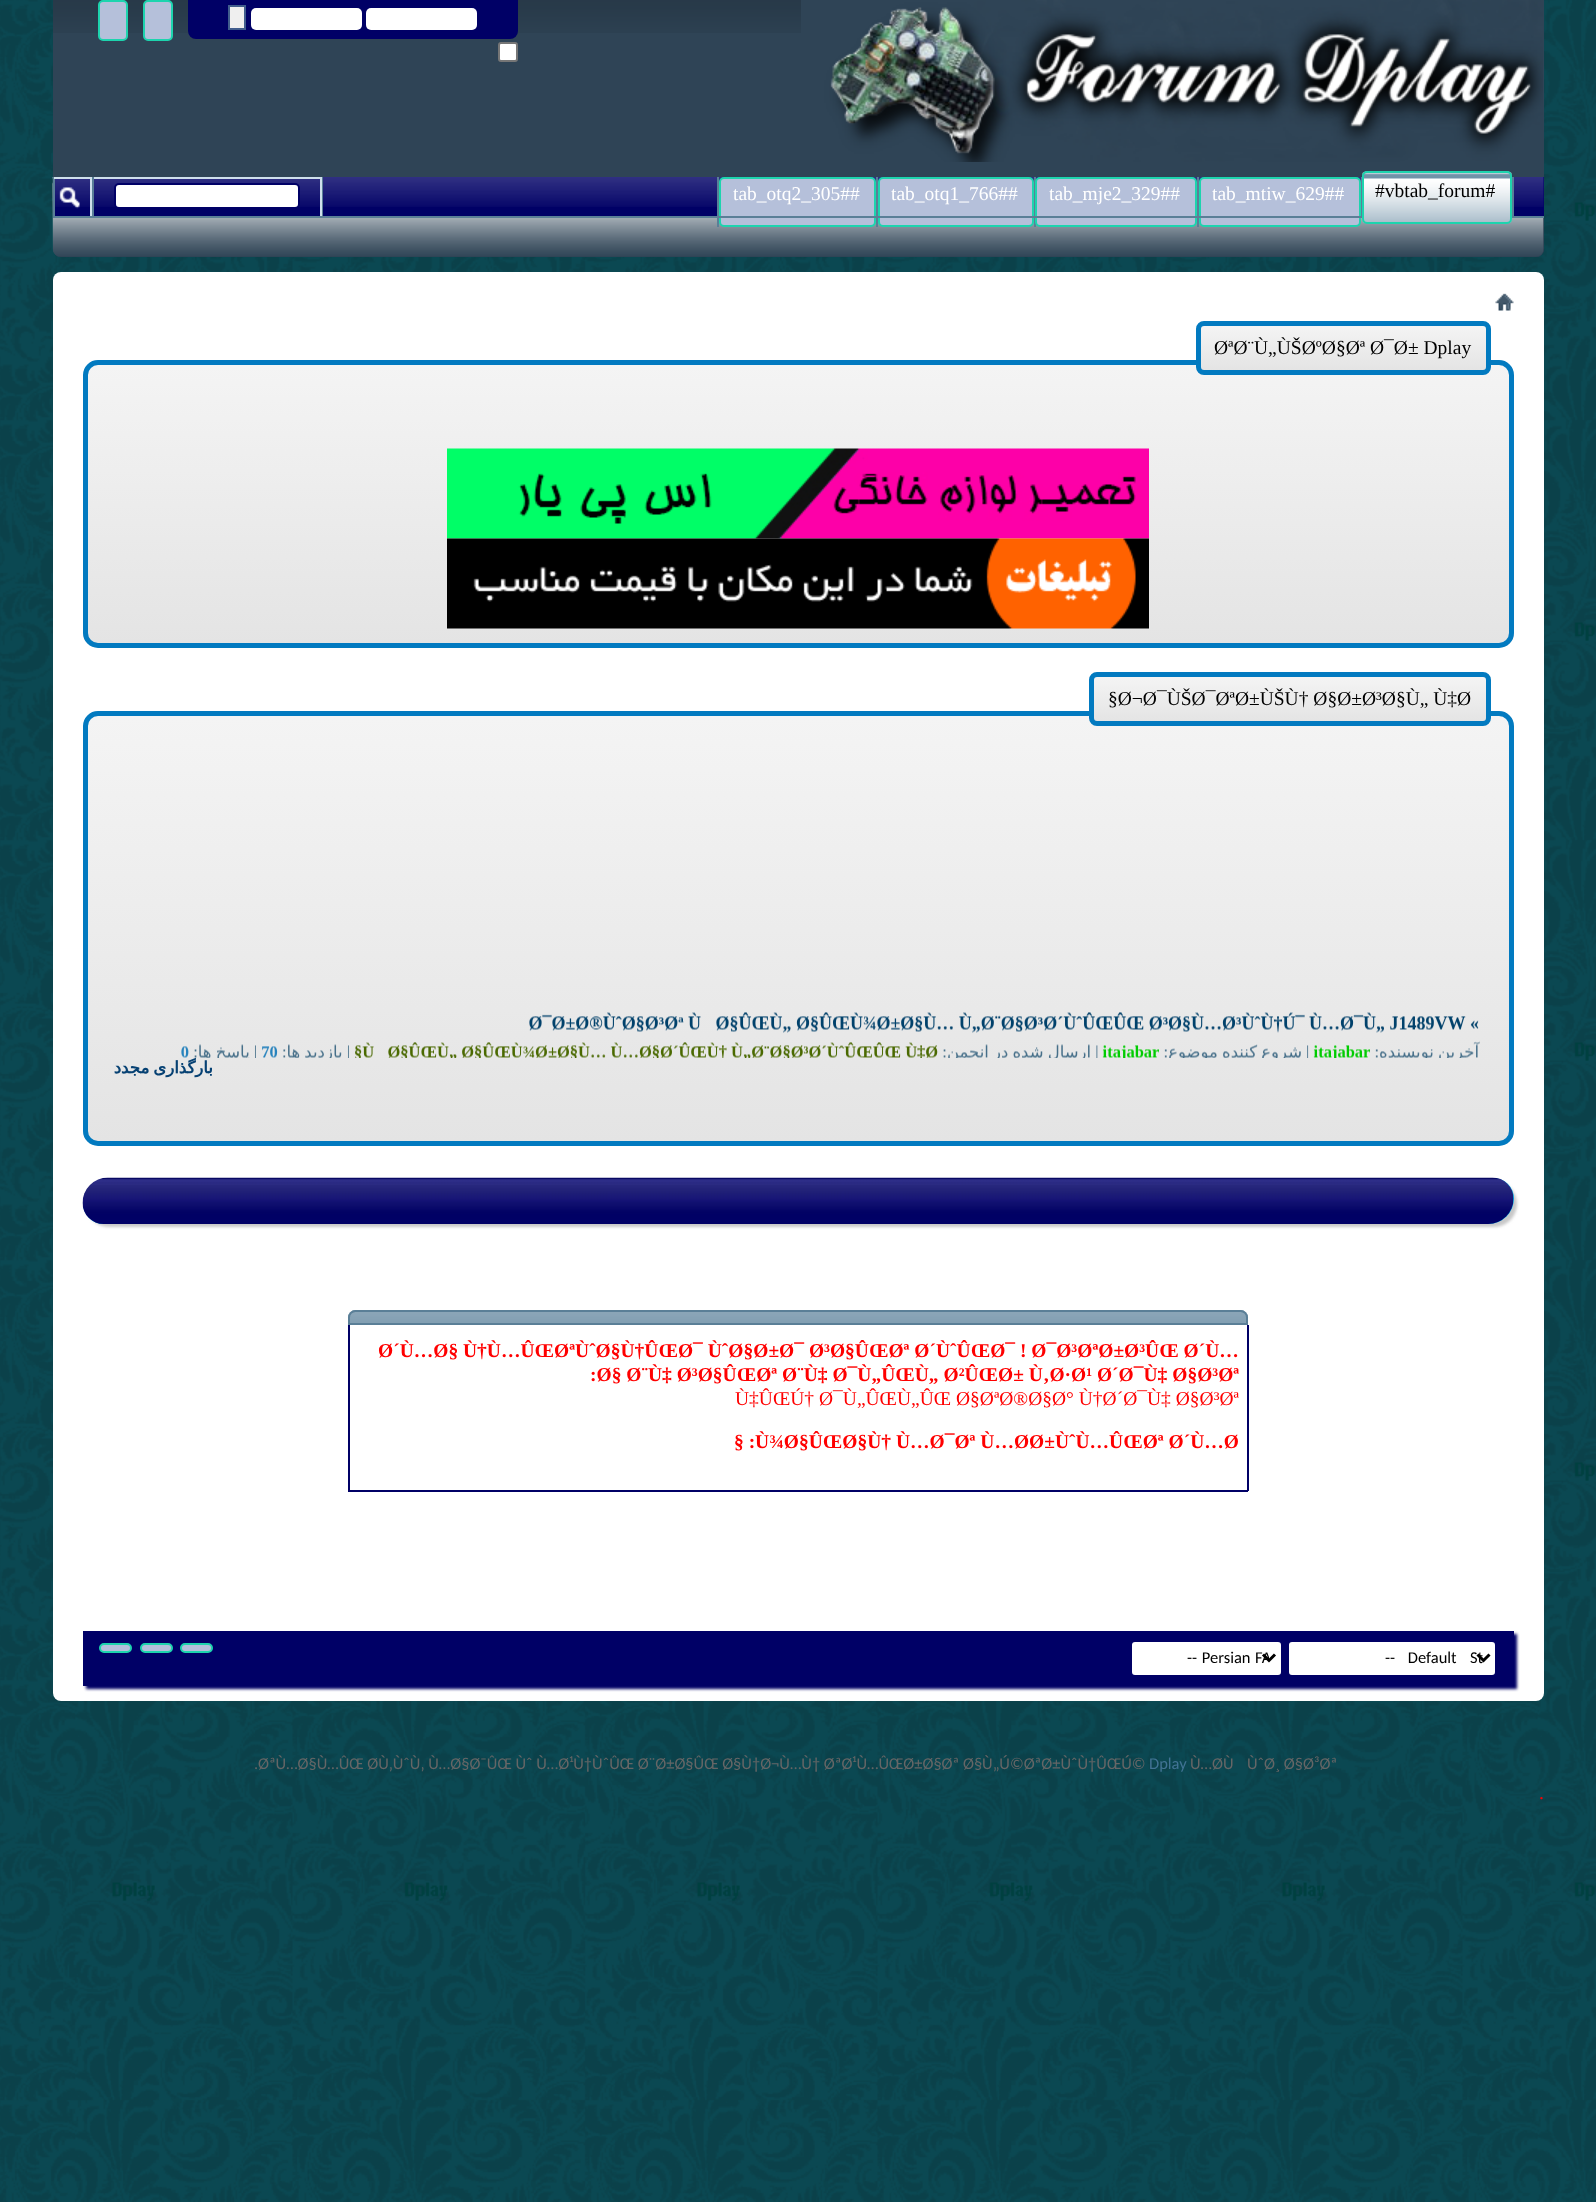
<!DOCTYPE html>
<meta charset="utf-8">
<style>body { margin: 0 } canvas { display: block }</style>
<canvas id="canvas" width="1596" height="2202"></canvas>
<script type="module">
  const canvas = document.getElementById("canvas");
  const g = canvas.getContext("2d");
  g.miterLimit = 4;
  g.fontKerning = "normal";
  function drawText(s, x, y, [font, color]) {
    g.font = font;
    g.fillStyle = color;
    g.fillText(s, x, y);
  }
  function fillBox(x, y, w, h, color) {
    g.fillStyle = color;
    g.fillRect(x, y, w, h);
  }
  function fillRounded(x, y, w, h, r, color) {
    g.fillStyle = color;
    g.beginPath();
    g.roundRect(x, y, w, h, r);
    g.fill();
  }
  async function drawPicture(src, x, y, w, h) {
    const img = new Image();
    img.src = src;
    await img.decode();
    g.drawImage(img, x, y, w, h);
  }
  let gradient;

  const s1 = ["19.5px Liberation Serif", "#FFFFFF"];
  const s2 = ["19.5px Liberation Serif", "#000000"];
  const s3 = ["bold 19.5px Liberation Serif", "#FF0000"];
  const s4 = ["19.5px Liberation Serif", "#FF0000"];
  const s5 = ["16.5px Carlito", "#000000"];
  const s6 = ["16.5px Carlito", "#666666"];
  const s7 = ["16.5px Carlito", "#417394"];

  fillBox(0, 0, 1596, 2202, "#FFFFFF");
  await drawPicture("pic1.png", 0, 0, 1596, 2202);
  g.fillStyle = "#2F4456";
  g.beginPath();
  g.roundRect(53, 0, 1491, 257, [0, 0, 8, 8]);
  g.fill();
  await drawPicture("pic2.png", 53, 0, 748, 33);
  g.fillStyle = "#B5C0DA";
  g.beginPath();
  g.roundRect(99, 1, 28, 39, 4);
  g.fill();
  g.strokeStyle = "#1DD4AE";
  g.lineWidth = 2;
  g.stroke();
  g.beginPath();
  g.roundRect(144, 1, 28, 39, 4);
  g.fill();
  g.stroke();
  g.fillStyle = "#000066";
  g.beginPath();
  g.roundRect(188, 0, 330, 39, [0, 0, 8, 8]);
  g.fill();
  g.fillStyle = "#EFEFEF";
  g.beginPath();
  g.rect(229, 6, 16, 23);
  g.fill();
  g.strokeStyle = "#415D8D";
  g.stroke();
  fillRounded(251, 8, 111, 22, 5, "#FFFFFF");
  fillRounded(366, 8, 111, 22, 5, "#FFFFFF");
  g.beginPath();
  g.roundRect(499, 43, 18, 18, 2);
  g.fill();
  g.strokeStyle = "#767676";
  g.stroke();
  await drawPicture("pic3.png", 801, 0, 742, 162);
  g.fillStyle = "#2F4456";
  g.beginPath();
  g.roundRect(53, 177, 1491, 80, [0, 0, 8, 8]);
  g.fill();
  await drawPicture("pic4.png", 52, 177, 1492, 79);
  fillBox(55, 177, 1489, 39, "#000066");
  await drawPicture("pic6.png", 52, 177, 1492, 30);
  fillBox(93, 177, 228, 2, "#CEDFEB");
  fillBox(92, 177, 2, 39, "#5A7F97");
  fillBox(53, 177, 2, 39, "#5A7F97");
  fillBox(54, 177, 38, 2, "#CEDFEB");
  fillBox(90, 177, 2, 39, "#CEDFEB");
  await drawPicture("pic5.png", 59, 187, 21, 22);
  fillBox(322, 177, 1, 39, "#5A7F97");
  fillBox(320, 177, 2, 39, "#CEDFEB");
  g.fillStyle = "#FFFFFF";
  g.beginPath();
  g.roundRect(115, 184, 184, 24, 4);
  g.fill();
  g.strokeStyle = "#000066";
  g.stroke();
  fillBox(717, 177, 2, 50, "#5A7F97");
  g.fillStyle = "#B5C0DA";
  g.beginPath();
  g.roundRect(720, 178, 155, 48, 4);
  g.fill();
  g.strokeStyle = "#1DD4AE";
  g.stroke();
  drawText("tab_otq2_305##", 733, 200, s1);
  fillBox(876, 177, 2, 50, "#5A7F97");
  g.fillStyle = "#B5C0DA";
  g.beginPath();
  g.roundRect(879, 178, 154, 48, 4);
  g.fill();
  g.stroke();
  drawText("tab_otq1_766##", 891, 200, s1);
  fillBox(1034, 177, 2, 50, "#5A7F97");
  g.fillStyle = "#B5C0DA";
  g.beginPath();
  g.roundRect(1036, 178, 160, 48, 4);
  g.fill();
  g.stroke();
  drawText("tab_mje2_329##", 1049, 200, s1);
  fillBox(1197, 177, 2, 50, "#5A7F97");
  g.fillStyle = "#B5C0DA";
  g.beginPath();
  g.roundRect(1200, 178, 160, 48, 4);
  g.fill();
  g.stroke();
  drawText("tab_mtiw_629##", 1212, 200, s1);
  fillBox(1512, 177, 2, 39, "#5A7F97");
  fillBox(1361, 177, 1, 39, "#5A7F97");
  fillBox(53, 216, 1491, 2, "#5A7F97");
  fillRounded(1362, 171, 150, 53, 5, "#7192A8");
  await drawPicture("pic7.png", 1362, 172, 150, 52);
  g.beginPath();
  g.roundRect(1363, 172, 148, 51, 4);
  g.stroke();
  drawText("#vbtab_forum#", 1375, 197, s2);
  fillRounded(53, 272, 1491, 1429, 8, "#FFFFFF");
  await drawPicture("pic8.png", 1495, 293, 19, 18);
  g.save();
  g.beginPath();
  g.roundRect(83, 360, 1431, 288, 15);
  g.clip();
  gradient = g.createLinearGradient(87, 365, 87, 644);
  gradient.addColorStop(0, "#F4F4F4");
  gradient.addColorStop(1, "#E4E4E4");
  g.fillStyle = gradient;
  g.fillRect(83, 365, 1431, 279);
  g.restore();
  g.beginPath();
  g.roundRect(85.5, 362.5, 1426, 283, 12.5);
  g.strokeStyle = "#027AC0";
  g.lineWidth = 5;
  g.stroke();
  g.save();
  g.beginPath();
  g.roundRect(1196, 321, 295, 54, 8);
  g.clip();
  gradient = g.createLinearGradient(1200, 326, 1200, 371);
  gradient.addColorStop(0, "#F4F4F4");
  gradient.addColorStop(1, "#E4E4E4");
  g.fillStyle = gradient;
  g.fillRect(1196, 326, 295, 45);
  g.restore();
  g.beginPath();
  g.roundRect(1198.5, 323.5, 290, 49, 5.5);
  g.stroke();
  drawText("ØªØ¨Ù„ÙŠØºØ§Øª Ø¯Ø± Dplay", 1214, 354, s2);
  await drawPicture("pic9.png", 447, 448, 702, 91);
  await drawPicture("pic10.png", 447, 538, 702, 91);
  g.save();
  g.beginPath();
  g.roundRect(83, 711, 1431, 435, 15);
  g.clip();
  gradient = g.createLinearGradient(87, 716, 87, 1142);
  gradient.addColorStop(0, "#F4F4F4");
  gradient.addColorStop(1, "#E4E4E4");
  g.fillStyle = gradient;
  g.fillRect(83, 716, 1431, 426);
  g.restore();
  g.beginPath();
  g.roundRect(85.5, 713.5, 1426, 430, 12.5);
  g.stroke();
  g.save();
  g.beginPath();
  g.roundRect(1089, 672, 402, 54, 8);
  g.clip();
  gradient = g.createLinearGradient(1094, 677, 1094, 722);
  gradient.addColorStop(0, "#F4F4F4");
  gradient.addColorStop(1, "#E4E4E4");
  g.fillStyle = gradient;
  g.fillRect(1089, 677, 402, 45);
  g.restore();
  g.beginPath();
  g.roundRect(1091.5, 674.5, 397, 49, 5.5);
  g.stroke();
  drawText("§Ø¬Ø¯ÙŠØ¯ØªØ±ÙŠÙ† Ø§Ø±Ø³Ø§Ù„ Ù‡Ø", 1108, 705, s2);
  await drawPicture("pic11.png", 114, 1012, 1366, 66);
  g.fillStyle = "#C8C8C8";
  g.filter = "blur(1.5px)";
  g.beginPath();
  g.roundRect(86, 1181, 1431, 46, 26);
  g.fill();
  g.filter = "none";
  g.fillStyle = "#09B4EC";
  g.beginPath();
  g.roundRect(83, 1178, 1431, 46, [25.45, 20.55, 25.45, 20.55]);
  g.fill();
  await drawPicture("pic12.png", 82, 1177, 1432, 47);
  g.fillStyle = "#7192A8";
  g.beginPath();
  g.roundRect(348, 1310, 900, 15, [7.5, 7.5, 0, 0]);
  g.fill();
  await drawPicture("pic13.png", 348, 1311, 900, 12);
  g.beginPath();
  g.roundRect(349, 1311, 898, 13, [6.5, 6.5, 0, 0]);
  g.strokeStyle = "#5A7F97";
  g.lineWidth = 2;
  g.stroke();
  fillBox(1247, 1325, 2, 166, "#000066");
  fillBox(348, 1490, 900, 2, "#000066");
  fillBox(348, 1325, 2, 166, "#000066");
  drawText("Ø´Ù…Ø§ Ù†Ù…ÛŒØªÙˆØ§Ù†ÛŒØ¯ ÙˆØ§Ø±Ø¯ Ø³Ø§ÛŒØª Ø´ÙˆÛŒØ¯ ! Ø¯Ø³ØªØ±Ø³ÛŒ Ø´Ù…", 378, 1357, s3);
  drawText(":Ø§ Ø¨Ù‡ Ø³Ø§ÛŒØª Ø¨Ù‡ Ø¯Ù„ÛŒÙ„ Ø²ÛŒØ± Ù‚Ø·Ø¹ Ø´Ø¯Ù‡ Ø§Ø³Øª", 590, 1381, s3);
  drawText("Ù‡ÛŒÚ† Ø¯Ù„ÛŒÙ„ÛŒ Ø§ØªØ®Ø§Ø° Ù†Ø´Ø¯Ù‡ Ø§Ø³Øª", 735, 1405, s4);
  drawText("§ :Ù¾Ø§ÛŒØ§Ù† Ù…Ø¯Øª Ù…ØØ±ÙˆÙ…ÛŒØª Ø´Ù…Ø", 734, 1448, s3);
  g.fillStyle = "#000066";
  g.filter = "blur(1.5px)";
  g.beginPath();
  g.rect(86, 1634, 1431, 55);
  g.fill();
  g.filter = "none";
  fillBox(83, 1631, 1431, 55, "#000066");
  g.fillStyle = "#B5C0DA";
  g.beginPath();
  g.roundRect(100, 1644, 31, 8, 4);
  g.fill();
  g.strokeStyle = "#1DD4AE";
  g.stroke();
  g.beginPath();
  g.roundRect(141, 1644, 31, 8, 4);
  g.fill();
  g.stroke();
  g.beginPath();
  g.roundRect(181, 1644, 31, 8, 4);
  g.fill();
  g.stroke();
  g.fillStyle = "#FFFFFF";
  g.beginPath();
  g.roundRect(1131, 1641, 151, 35, 4);
  g.fill();
  g.strokeStyle = "#000066";
  g.stroke();
  g.beginPath();
  g.moveTo(1263, 1654.5);
  g.lineTo(1269, 1660.5);
  g.lineTo(1275, 1654.5);
  g.strokeStyle = "#000000";
  g.lineWidth = 3;
  g.stroke();
  g.wordSpacing = "1px";
  drawText("-- Persian", 1187, 1663, s5);
  g.save();
  g.beginPath();
  g.rect(1161, 1647, 108, 23);
  g.clip();
  g.wordSpacing = "0px";
  drawText("FA", 1255, 1663, s5);
  g.restore();
  g.fillStyle = "#FFFFFF";
  g.beginPath();
  g.roundRect(1288, 1641, 208, 35, 4);
  g.fill();
  g.strokeStyle = "#000066";
  g.lineWidth = 2;
  g.stroke();
  g.beginPath();
  g.moveTo(1477.5, 1654.5);
  g.lineTo(1483.5, 1660.5);
  g.lineTo(1489.5, 1654.5);
  g.strokeStyle = "#000000";
  g.lineWidth = 3;
  g.stroke();
  g.wordSpacing = "9px";
  drawText("-- Default", 1385, 1663, s5);
  g.wordSpacing = "0px";
  drawText("St", 1470, 1663, s5);
  drawText(".", 254, 1769, s6);
  drawText("ØªÙ…Ø§Ù…ÛŒ ØÙ‚ÙˆÙ‚ Ù…Ø§Ø¯ÛŒ Ùˆ Ù…Ø¹Ù†ÙˆÛŒ Ø¨Ø±Ø§ÛŒ Ø§Ù†Ø¬Ù…Ù† ØªØ¹Ù…ÛŒØ±Ø§Øª Ø§Ù„Ú©ØªØ±ÙˆÙ†ÛŒÚ©", 258, 1769, s6);
  drawText("Dplay", 1149, 1769, s7);
  drawText("Ù…ØÙ", 1190, 1769, s6);
  drawText("ÙˆØ¸ Ø§Ø³Øª", 1247, 1769, s6);
  drawText(".", 1539, 1799, s4);
</script>
